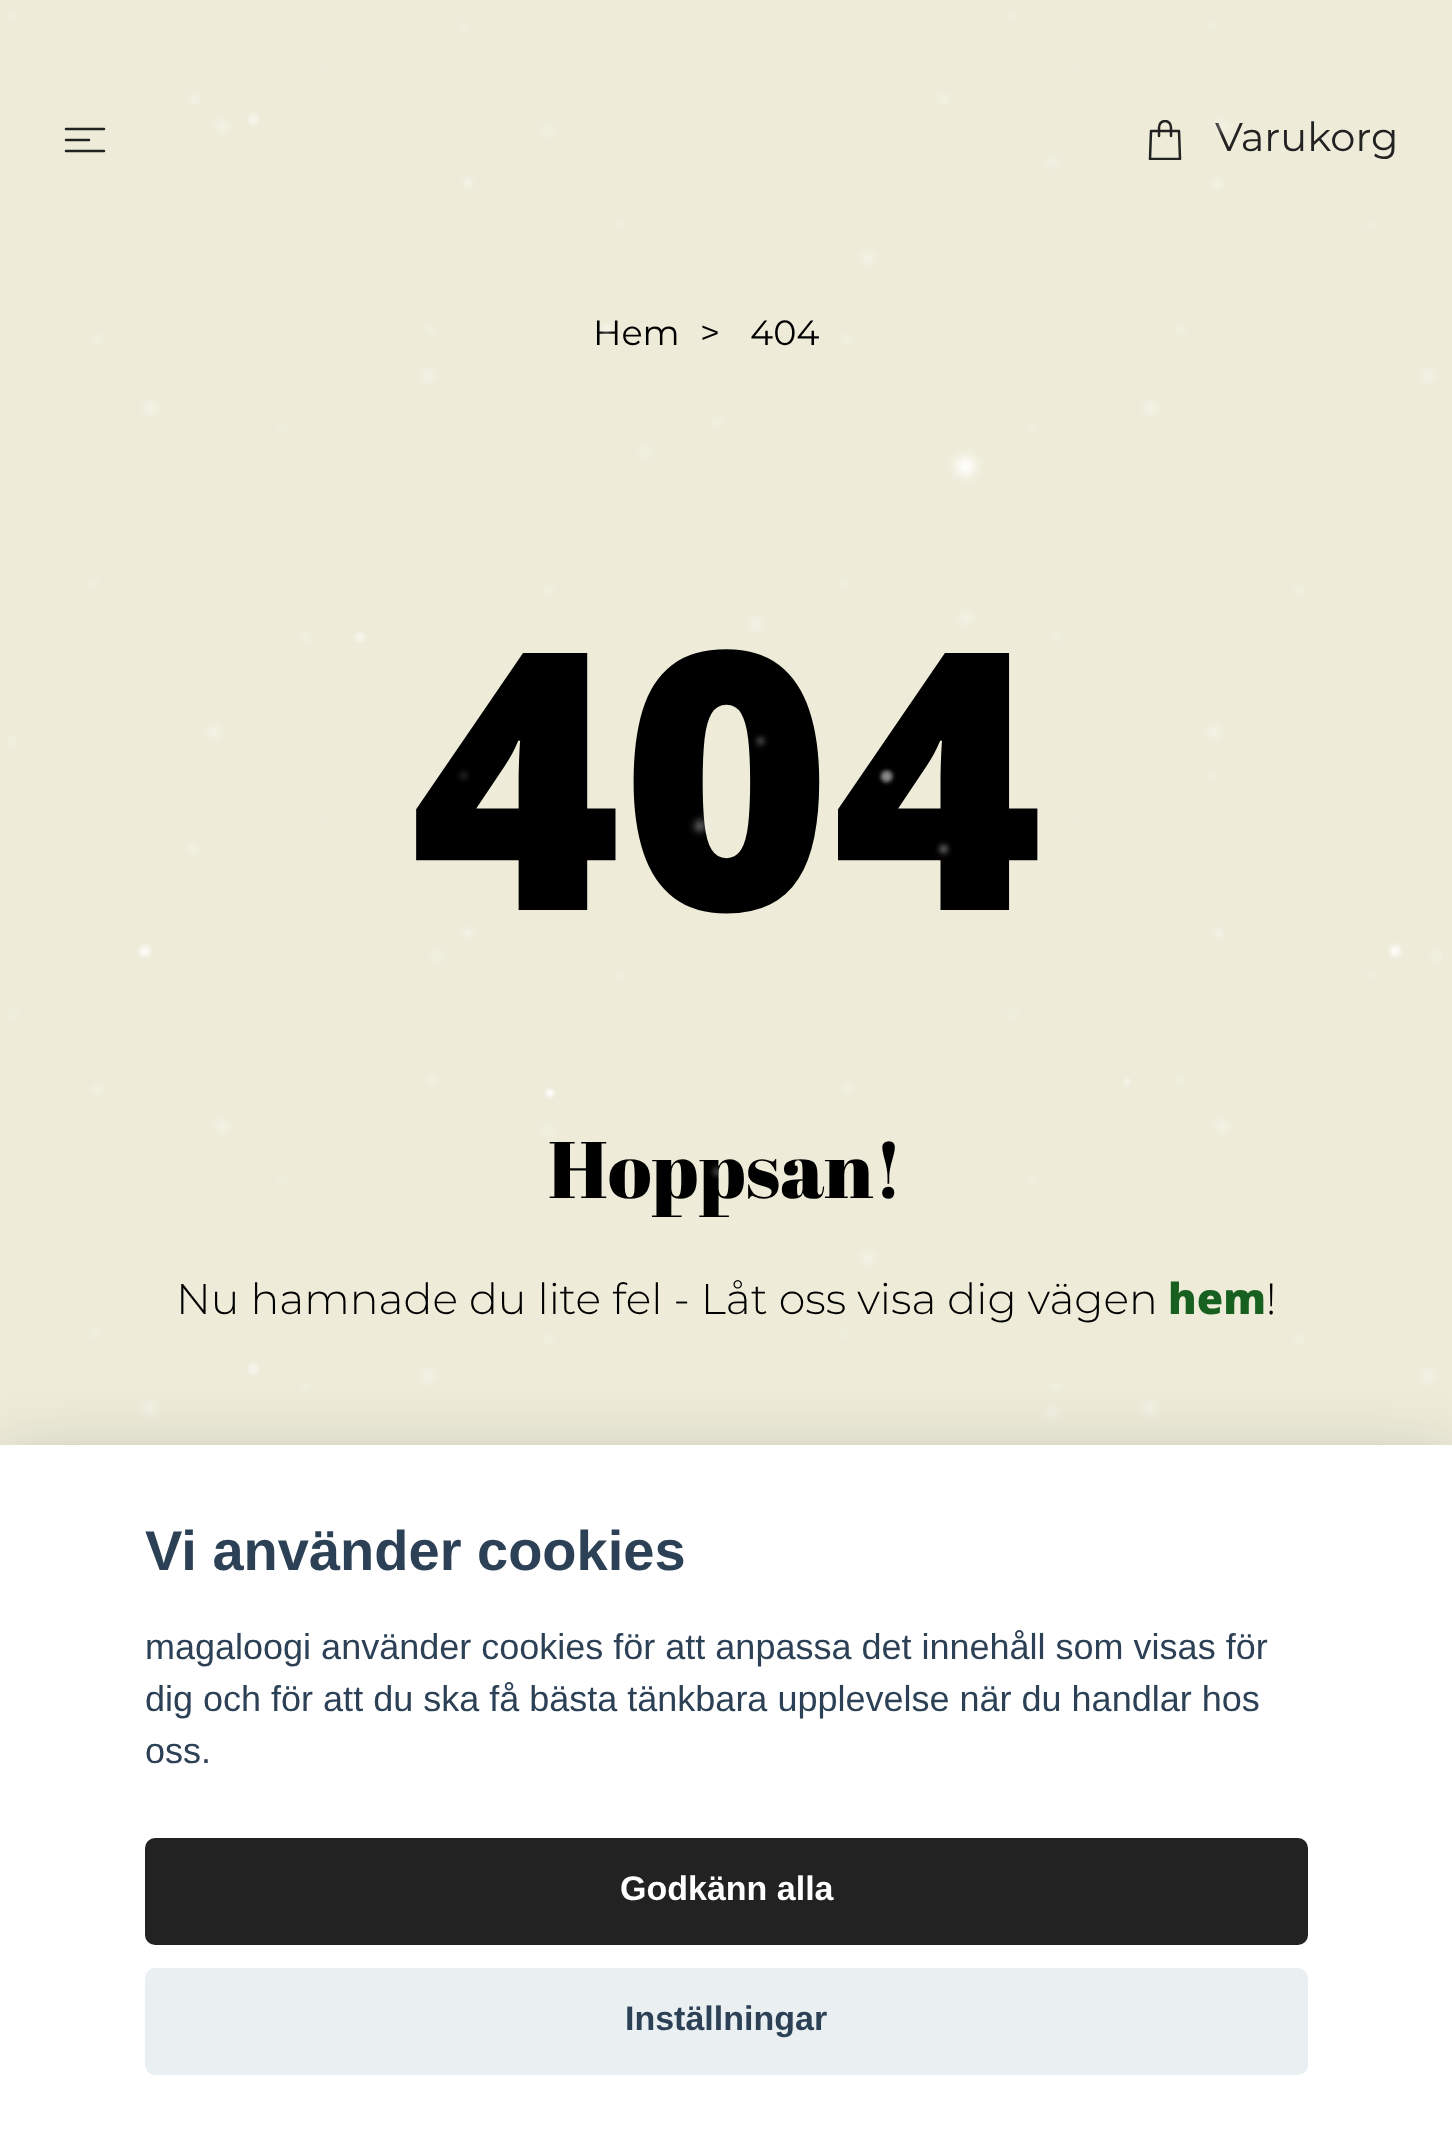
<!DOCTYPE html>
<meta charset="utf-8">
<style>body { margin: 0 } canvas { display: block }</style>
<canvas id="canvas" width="1452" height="2148"></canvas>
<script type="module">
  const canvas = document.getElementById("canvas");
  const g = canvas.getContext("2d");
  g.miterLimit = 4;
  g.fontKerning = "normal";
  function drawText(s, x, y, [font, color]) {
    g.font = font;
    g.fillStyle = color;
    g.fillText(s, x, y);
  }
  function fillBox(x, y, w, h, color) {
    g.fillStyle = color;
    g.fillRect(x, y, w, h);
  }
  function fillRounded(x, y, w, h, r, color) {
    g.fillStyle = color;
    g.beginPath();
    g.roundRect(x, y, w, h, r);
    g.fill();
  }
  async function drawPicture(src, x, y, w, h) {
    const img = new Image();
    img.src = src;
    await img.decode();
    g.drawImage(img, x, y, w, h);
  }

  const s1 = ["40px Montserrat", "#222222"];
  const s2 = ["35px Montserrat", "#000000"];
  const s3 = ["800 360px Open Sans", "#000000"];
  const s4 = ["80px Abril Fatface", "#000000"];
  const s5 = ["300 42.8px Montserrat", "#000000"];
  const s6 = ["800 42.8px Open Sans", "#17601F"];
  const s7 = ["300 42.8px Open Sans", "#000000"];
  const s8 = ["bold 56px Liberation Sans", "#2D4156"];
  const s9 = ["36px Liberation Sans", "#2D4156"];
  const s10 = ["bold 34px Liberation Sans", "#FFFFFF"];
  const s11 = ["bold 34px Liberation Sans", "#2D4156"];

  fillBox(0, 0, 1452, 2148, "#EEECD9");
  g.beginPath();
  g.moveTo(66, 129);
  g.lineTo(104, 129);
  g.moveTo(66, 140);
  g.lineTo(89, 140);
  g.moveTo(66, 151);
  g.lineTo(104, 151);
  g.strokeStyle = "#222222";
  g.lineWidth = 2.5;
  g.lineCap = "round";
  g.lineJoin = "round";
  g.stroke();
  g.save();
  g.beginPath();
  g.rect(1135, 120, 60, 40);
  g.clip();
  g.beginPath();
  g.moveTo(1180, 159);
  g.lineTo(1150, 159);
  g.lineTo(1151, 131);
  g.lineTo(1179, 131);
  g.closePath();
  g.moveTo(1159, 136);
  g.lineTo(1159, 127.5);
  g.bezierCurveTo(1159, 124, 1161.5, 121, 1165, 121);
  g.bezierCurveTo(1168.5, 121, 1171, 124, 1171, 127.5);
  g.lineTo(1171, 136);
  g.stroke();
  g.restore();
  drawText("Varukorg", 1215, 151, s1);
  drawText("Hem", 593, 345, s2);
  drawText(">", 700, 345, s2);
  drawText("404", 750, 345, s2);
  drawText("404", 410, 910, s3);
  drawText("Hoppsan!", 548, 1198, s4);
  drawText("Nu hamnade du lite fel - Låt oss visa dig vägen", 176, 1314, s5);
  drawText("hem", 1168, 1314, s6);
  drawText("!", 1266, 1314, s7);
  await drawPicture("pic1.png", 7, 13, 1436, 1432);
  g.fillStyle = "rgba(2, 2, 3, 0.28)";
  g.filter = "blur(37.5px)";
  g.beginPath();
  g.rect(0, 1470, 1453, 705);
  g.fill();
  g.filter = "none";
  fillBox(0, 1445, 1452, 703, "#FFFFFF");
  drawText("Vi använder cookies", 145, 1570, s8);
  drawText("magaloogi använder cookies för att anpassa det innehåll som visas för", 145, 1659, s9);
  drawText("dig och för att du ska få bästa tänkbara upplevelse när du handlar hos", 145, 1711, s9);
  drawText("oss.", 145, 1763, s9);
  fillRounded(145, 1838, 1163, 107, 10, "#222222");
  drawText("Godkänn alla", 620, 1900, s10);
  fillRounded(145, 1968, 1163, 107, 10, "#EAEFF2");
  drawText("Inställningar", 625, 2030, s11);
</script>
